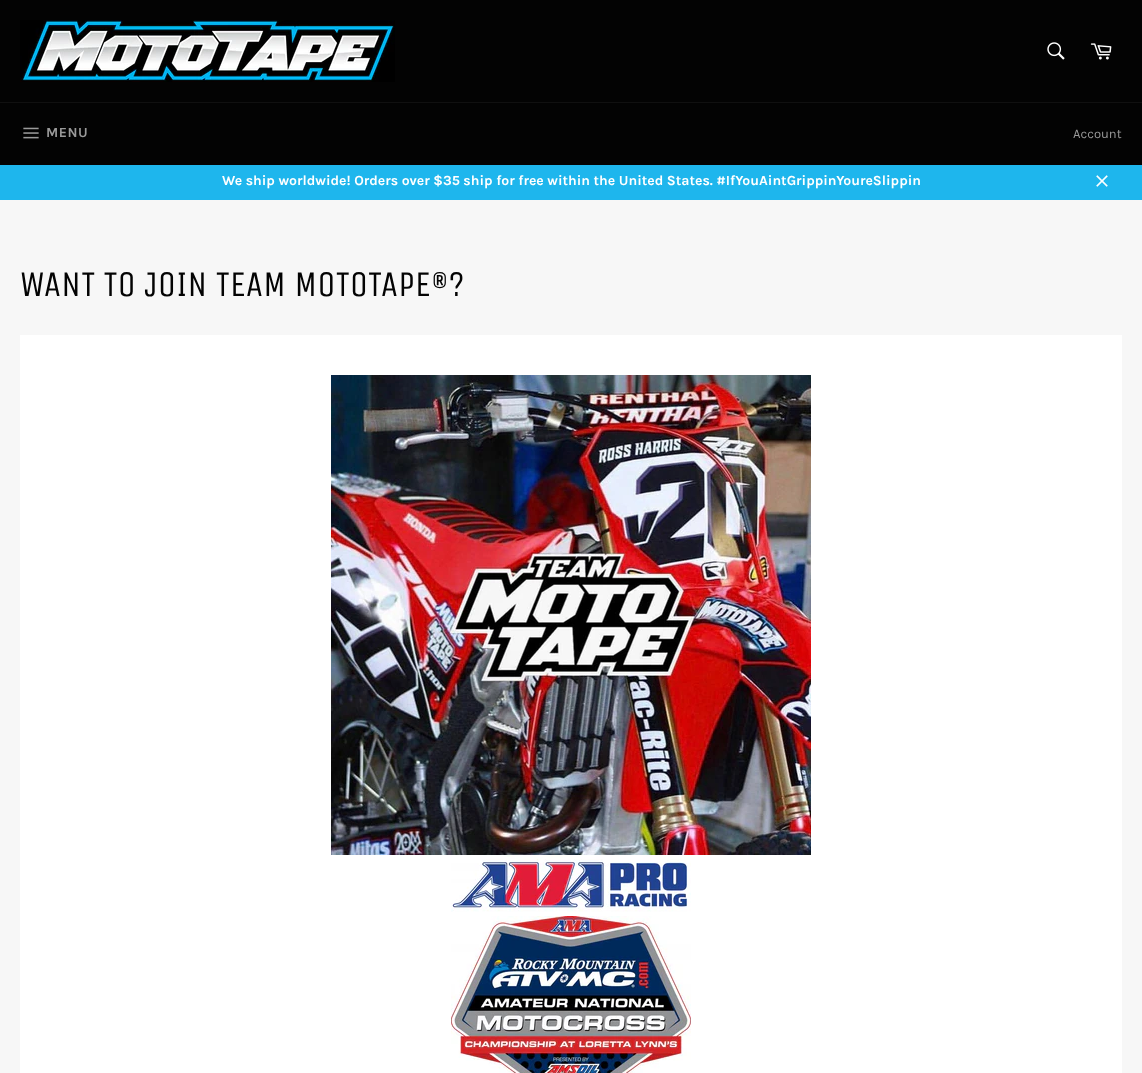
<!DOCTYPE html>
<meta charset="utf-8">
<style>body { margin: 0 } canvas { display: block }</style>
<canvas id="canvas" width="1142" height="1073"></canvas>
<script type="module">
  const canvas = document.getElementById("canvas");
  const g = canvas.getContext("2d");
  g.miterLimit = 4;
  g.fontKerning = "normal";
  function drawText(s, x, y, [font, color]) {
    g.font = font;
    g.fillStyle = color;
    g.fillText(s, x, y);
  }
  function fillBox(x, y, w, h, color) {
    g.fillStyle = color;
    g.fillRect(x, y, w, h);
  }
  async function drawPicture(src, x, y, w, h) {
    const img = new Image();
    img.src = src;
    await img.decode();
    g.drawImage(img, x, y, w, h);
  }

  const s1 = ["bold 14px Karla", "#9A9A9A"];
  const s2 = ["13px Karla", "#9A9A9A"];
  const s3 = ["bold 14px Karla", "#FFFFFF"];
  const s4 = ["36px Unica One", "#030303"];

  fillBox(0, 0, 1142, 1073, "#F7F7F7");
  fillBox(0, 0, 1142, 102, "#030303");
  await drawPicture("pic1.png", 20, 20, 375, 62);
  await drawPicture("pic2.png", 1047, 42, 18, 18);
  await drawPicture("pic3.png", 1090, 43, 22, 17);
  fillBox(0, 103, 1142, 62, "#030303");
  fillBox(0, 102, 1142, 1, "#101010");
  await drawPicture("pic4.png", 23, 127, 16, 12);
  g.letterSpacing = "0.5px";
  drawText("MENU", 46, 137, s1);
  g.letterSpacing = "0px";
  drawText("Account", 1073, 138, s2);
  fillBox(0, 165, 1142, 35, "#1EB6ED");
  drawText("We ship worldwide! Orders over $35 ship for free within the United States. #IfYouAintGrippinYoureSlippin", 222, 185, s3);
  await drawPicture("pic5.png", 1096, 175, 12, 12);
  drawText("WANT TO JOIN TEAM MOTOTAPE®?", 20, 296, s4);
  fillBox(20, 335, 1102, 738, "#FFFFFF");
  await drawPicture("pic6.png", 331, 375, 480, 480);
  await drawPicture("pic7.png", 451, 855, 240, 57);
  await drawPicture("pic8.png", 451, 916, 240, 157);
</script>
